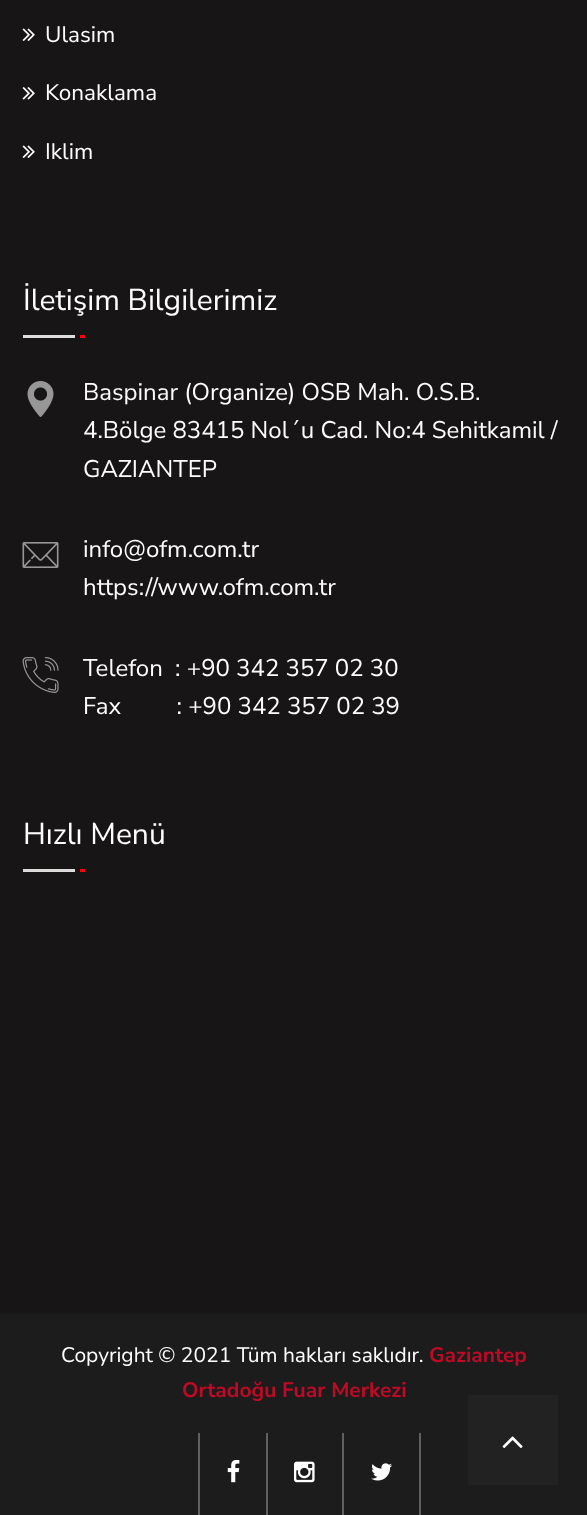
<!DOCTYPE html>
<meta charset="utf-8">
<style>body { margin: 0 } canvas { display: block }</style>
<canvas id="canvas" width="587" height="1515"></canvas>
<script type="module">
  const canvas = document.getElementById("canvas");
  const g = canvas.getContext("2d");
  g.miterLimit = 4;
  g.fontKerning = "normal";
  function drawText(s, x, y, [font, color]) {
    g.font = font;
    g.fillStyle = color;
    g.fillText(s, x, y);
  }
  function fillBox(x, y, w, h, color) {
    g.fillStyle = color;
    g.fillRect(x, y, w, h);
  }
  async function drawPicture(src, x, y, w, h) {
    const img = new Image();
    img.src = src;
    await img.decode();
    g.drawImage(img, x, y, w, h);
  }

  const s1 = ["22.5px Nunito Sans", "#FFFFFF"];
  const s2 = ["30px Nunito Sans", "#FFFFFF"];
  const s3 = ["24px Nunito Sans", "#FFFFFF"];
  const s4 = ["21px Nunito Sans", "#FFFFFF"];
  const s5 = ["bold 21px Nunito Sans", "#BF0A26"];

  fillBox(0, 0, 587, 1515, "#171515");
  await drawPicture("pic1.png", 22, 28, 13, 13);
  drawText("Ulasim", 45, 42, s1);
  await drawPicture("pic2.png", 22, 87, 13, 13);
  drawText("Konaklama", 45, 100, s1);
  await drawPicture("pic1.png", 22, 145, 13, 13);
  drawText("Iklim", 45, 159, s1);
  drawText("İletişim Bilgilerimiz", 23, 310, s2);
  fillBox(23, 335, 52, 3, "#DFDCDC");
  fillBox(80, 335, 5, 3, "#FF000C");
  await drawPicture("pic3.png", 27, 381, 27, 36);
  drawText("Baspinar (Organize) OSB Mah. O.S.B.", 83, 400, s3);
  drawText("4.Bölge 83415 Nol´u Cad. No:4 Sehitkamil /", 83, 438, s3);
  drawText("GAZIANTEP", 83, 477, s3);
  await drawPicture("pic4.png", 22, 542, 37, 26);
  drawText("info@ofm.com.tr", 83, 557, s3);
  drawText("https://www.ofm.com.tr", 83, 595, s3);
  await drawPicture("pic5.png", 22, 657, 37, 36);
  drawText("Telefon  : +90 342 357 02 30", 83, 676, s3);
  drawText("Fax         : +90 342 357 02 39", 83, 714, s3);
  drawText("Hızlı Menü", 23, 844, s2);
  fillBox(23, 869, 52, 3, "#DFDCDC");
  fillBox(80, 869, 5, 3, "#FF000C");
  fillBox(0, 1314, 587, 201, "#1D1C1C");
  drawText("Copyright © 2021 Tüm hakları saklıdır.", 61, 1362, s4);
  drawText("Gaziantep", 429, 1362, s5);
  drawText("Ortadoğu Fuar Merkezi", 182, 1397, s5);
  fillBox(198, 1433, 2, 82, "#616060");
  await drawPicture("pic6.png", 227, 1459, 13, 24);
  fillBox(266, 1433, 2, 82, "#616060");
  await drawPicture("pic7.png", 294, 1461, 21, 22);
  fillBox(419, 1433, 2, 82, "#616060");
  fillBox(342, 1433, 2, 82, "#616060");
  await drawPicture("pic8.png", 371, 1463, 21, 18);
  fillBox(468, 1395, 90, 90, "#222222");
  await drawPicture("pic9.png", 502, 1436, 21, 12);
</script>
